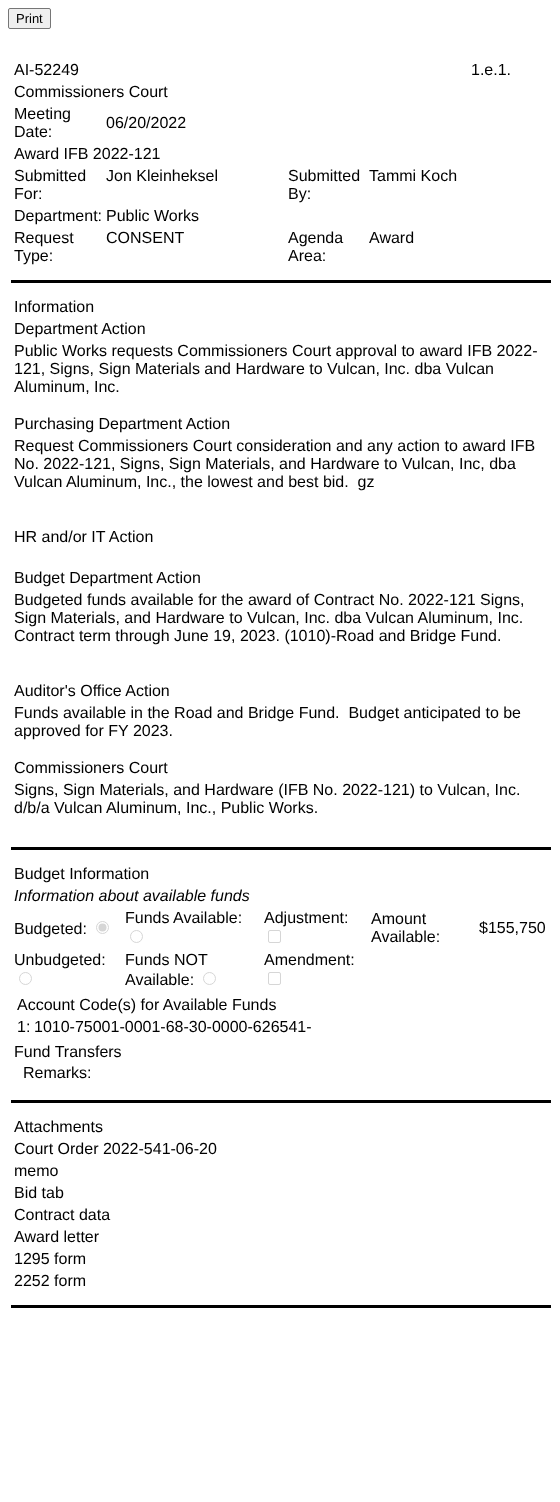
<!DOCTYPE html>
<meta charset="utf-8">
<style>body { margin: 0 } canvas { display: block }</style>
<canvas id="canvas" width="560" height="1502"></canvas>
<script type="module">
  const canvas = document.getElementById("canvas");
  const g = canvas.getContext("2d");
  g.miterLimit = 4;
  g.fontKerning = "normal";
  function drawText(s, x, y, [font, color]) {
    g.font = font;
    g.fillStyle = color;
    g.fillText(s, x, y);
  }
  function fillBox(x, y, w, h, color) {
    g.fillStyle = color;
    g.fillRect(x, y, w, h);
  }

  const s1 = ["13px Liberation Sans", "#000000"];
  const s2 = ["16px Liberation Sans", "#000000"];
  const s3 = ["italic 16px Liberation Sans", "#000000"];

  fillBox(0, 0, 560, 1502, "#FFFFFF");
  g.fillStyle = "#EFEFEF";
  g.beginPath();
  g.roundRect(8.5, 8.5, 42, 20, 1.5);
  g.fill();
  g.strokeStyle = "#767676";
  g.stroke();
  drawText("Print", 16, 23, s1);
  drawText("AI-52249", 14, 75, s2);
  drawText("1.e.1.", 471, 75, s2);
  drawText("Commissioners Court", 14, 97, s2);
  drawText("Meeting", 14, 119, s2);
  drawText("Date:", 14, 137, s2);
  drawText("06/20/2022", 106, 128, s2);
  drawText("Award IFB 2022-121", 14, 159, s2);
  drawText("Submitted", 14, 181, s2);
  drawText("For:", 14, 199, s2);
  drawText("Jon Kleinheksel", 106, 181, s2);
  drawText("Submitted", 288, 181, s2);
  drawText("By:", 288, 199, s2);
  drawText("Tammi Koch", 369, 181, s2);
  drawText("Department:", 14, 221, s2);
  drawText("Public Works", 106, 221, s2);
  drawText("Request", 14, 243, s2);
  drawText("Type:", 14, 261, s2);
  drawText("CONSENT", 106, 243, s2);
  drawText("Agenda", 288, 243, s2);
  drawText("Area:", 288, 261, s2);
  drawText("Award", 369, 243, s2);
  fillBox(11, 280, 540, 3, "#000000");
  drawText("Information", 14, 312, s2);
  drawText("Department Action", 14, 334, s2);
  drawText("Public Works requests Commissioners Court approval to award IFB 2022-", 14, 356, s2);
  drawText("121, Signs, Sign Materials and Hardware to Vulcan, Inc. dba Vulcan", 14, 374, s2);
  drawText("Aluminum, Inc.", 14, 392, s2);
  drawText("Purchasing Department Action", 14, 429, s2);
  drawText("Request Commissioners Court consideration and any action to award IFB", 14, 451, s2);
  drawText("No. 2022-121, Signs, Sign Materials, and Hardware to Vulcan, Inc, dba", 14, 469, s2);
  drawText("Vulcan Aluminum, Inc., the lowest and best bid.  gz", 14, 487, s2);
  drawText("HR and/or IT Action", 14, 542, s2);
  drawText("Budget Department Action", 14, 583, s2);
  drawText("Budgeted funds available for the award of Contract No. 2022-121 Signs,", 14, 605, s2);
  drawText("Sign Materials, and Hardware to Vulcan, Inc. dba Vulcan Aluminum, Inc.", 14, 623, s2);
  drawText("Contract term through June 19, 2023. (1010)-Road and Bridge Fund.", 14, 641, s2);
  drawText("Auditor's Office Action", 14, 696, s2);
  drawText("Funds available in the Road and Bridge Fund.  Budget anticipated to be", 14, 718, s2);
  drawText("approved for FY 2023.", 14, 736, s2);
  drawText("Commissioners Court", 14, 773, s2);
  drawText("Signs, Sign Materials, and Hardware (IFB No. 2022-121) to Vulcan, Inc.", 14, 795, s2);
  drawText("d/b/a Vulcan Aluminum, Inc., Public Works.", 14, 813, s2);
  fillBox(11, 847, 540, 3, "#000000");
  drawText("Budget Information", 14, 879, s2);
  drawText("Information about available funds", 14, 901, s3);
  drawText("Budgeted:", 14, 934, s2);
  g.beginPath();
  g.arc(102.5, 927.5, 6, 0, Math.PI * 2);
  g.strokeStyle = "#D6D6D6";
  g.stroke();
  g.fillStyle = "#D6D6D6";
  g.beginPath();
  g.arc(102.5, 927.5, 4, 0, Math.PI * 2);
  g.fill();
  drawText("Funds Available:", 125, 923, s2);
  g.beginPath();
  g.arc(136.5, 936.5, 6, 0, Math.PI * 2);
  g.stroke();
  drawText("Adjustment:", 264, 923, s2);
  g.beginPath();
  g.roundRect(268.5, 930.5, 12, 12, 1.5);
  g.stroke();
  drawText("Amount", 371, 924, s2);
  drawText("Available:", 371, 942, s2);
  drawText("$155,750", 479, 933, s2);
  drawText("Unbudgeted:", 14, 965, s2);
  g.beginPath();
  g.arc(25.5, 978.5, 6, 0, Math.PI * 2);
  g.stroke();
  drawText("Funds NOT", 125, 965, s2);
  drawText("Available:", 125, 985, s2);
  g.beginPath();
  g.arc(209.5, 978.5, 6, 0, Math.PI * 2);
  g.stroke();
  drawText("Amendment:", 264, 965, s2);
  g.beginPath();
  g.roundRect(268.5, 972.5, 12, 12, 1.5);
  g.stroke();
  drawText("Account Code(s) for Available Funds", 17, 1010, s2);
  drawText("1:", 17, 1032, s2);
  drawText("1010-75001-0001-68-30-0000-626541-", 34, 1032, s2);
  drawText("Fund Transfers", 14, 1057, s2);
  drawText("Remarks:", 23, 1078, s2);
  fillBox(11, 1100, 540, 3, "#000000");
  drawText("Attachments", 14, 1132, s2);
  drawText("Court Order 2022-541-06-20", 14, 1154, s2);
  drawText("memo", 14, 1176, s2);
  drawText("Bid tab", 14, 1198, s2);
  drawText("Contract data", 14, 1220, s2);
  drawText("Award letter", 14, 1242, s2);
  drawText("1295 form", 14, 1264, s2);
  drawText("2252 form", 14, 1286, s2);
  fillBox(11, 1305, 540, 3, "#000000");
</script>
